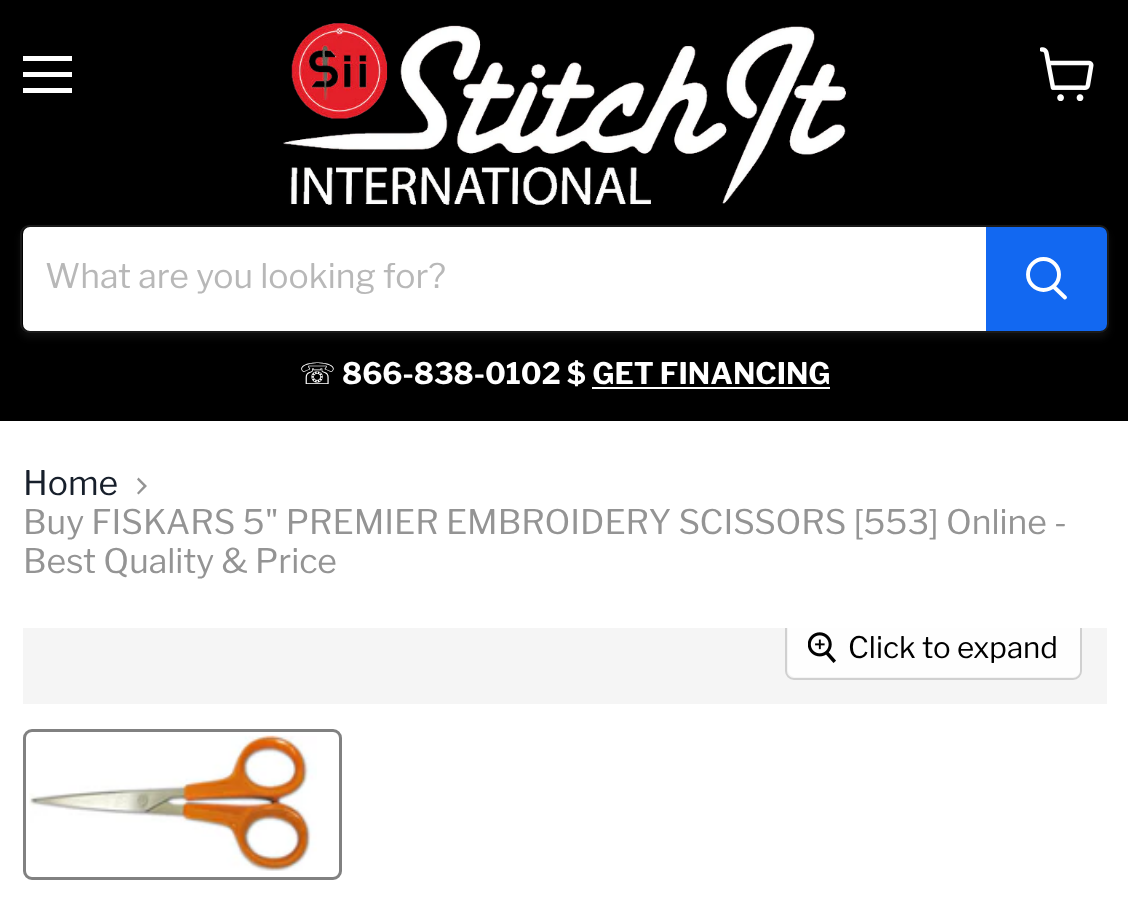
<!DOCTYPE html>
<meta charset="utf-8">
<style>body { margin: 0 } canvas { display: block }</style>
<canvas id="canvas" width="1128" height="902"></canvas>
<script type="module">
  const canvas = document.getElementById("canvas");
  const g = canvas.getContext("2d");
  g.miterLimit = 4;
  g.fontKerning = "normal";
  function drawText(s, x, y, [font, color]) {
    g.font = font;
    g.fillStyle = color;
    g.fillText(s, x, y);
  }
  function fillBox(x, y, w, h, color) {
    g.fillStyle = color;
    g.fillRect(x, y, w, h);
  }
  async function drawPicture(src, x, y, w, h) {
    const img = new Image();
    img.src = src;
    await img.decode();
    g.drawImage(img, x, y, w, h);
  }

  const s1 = ["33.75px Libre Franklin", "#B8B8B8"];
  const s2 = ["29.5px DejaVu Sans", "#FFFFFF"];
  const s3 = ["bold 29.5px Libre Franklin", "#FFFFFF"];
  const s4 = ["33.75px Libre Franklin", "#171F2B"];
  const s5 = ["33.75px Libre Franklin", "#949494"];
  const s6 = ["29.5px Libre Franklin", "#000000"];

  fillBox(0, 0, 1128, 902, "#FFFFFF");
  fillBox(0, 0, 1128, 421, "#000000");
  fillBox(23, 56, 49, 5, "#FFFFFF");
  fillBox(23, 72, 49, 5, "#FFFFFF");
  fillBox(23, 88, 49, 5, "#FFFFFF");
  await drawPicture("pic1.png", 1040, 47, 54, 54);
  await drawPicture("pic2.png", 283, 23, 563, 182);
  g.save();
  g.beginPath();
  g.moveTo(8, 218);
  g.lineTo(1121, 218);
  g.lineTo(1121, 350);
  g.lineTo(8, 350);
  g.closePath();
  g.moveTo(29, 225);
  g.lineTo(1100, 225);
  g.bezierCurveTo(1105, 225, 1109, 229, 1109, 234);
  g.lineTo(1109, 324);
  g.bezierCurveTo(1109, 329, 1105, 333, 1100, 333);
  g.lineTo(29, 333);
  g.bezierCurveTo(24, 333, 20, 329, 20, 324);
  g.lineTo(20, 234);
  g.bezierCurveTo(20, 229, 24, 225, 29, 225);
  g.closePath();
  g.clip("evenodd");
  g.fillStyle = "rgba(128, 128, 128, 0.11)";
  g.filter = "blur(3.5px)";
  g.beginPath();
  g.roundRect(20, 230, 1089, 108, 9);
  g.fill();
  g.filter = "none";
  g.restore();
  g.beginPath();
  g.roundRect(21, 226, 1087, 106, 8);
  g.strokeStyle = "rgba(128, 128, 128, 0.2)";
  g.lineWidth = 2;
  g.stroke();
  g.beginPath();
  g.roundRect(23, 227, 963, 104, [7, 0, 0, 7]);
  g.fill();
  drawText("What are you looking for?", 45, 288, s1);
  g.fillStyle = "#1268F1";
  g.beginPath();
  g.roundRect(987, 228, 119, 102, [0, 6, 6, 0]);
  g.fill();
  g.strokeStyle = "#1268F1";
  g.stroke();
  g.beginPath();
  g.moveTo(1065, 297.5);
  g.lineTo(1054, 287);
  g.strokeStyle = "#FFFFFF";
  g.lineWidth = 3.9;
  g.lineCap = "round";
  g.stroke();
  g.beginPath();
  g.arc(1043.5, 274.5, 15.5, 0, Math.PI * 2);
  g.stroke();
  drawText("☏", 299, 384, s2);
  drawText("866-838-0102 $ GET FINANCING", 342, 384, s3);
  fillBox(592, 387, 238, 2, "#FFFFFF");
  drawText("Home", 23, 495, s4);
  g.fillStyle = "#949494";
  g.beginPath();
  g.moveTo(137, 493);
  g.lineTo(138.5, 494.5);
  g.lineTo(147, 486);
  g.lineTo(138.5, 477.5);
  g.lineTo(137, 479.5);
  g.lineTo(143.5, 486);
  g.closePath();
  g.fill("evenodd");
  drawText("Buy FISKARS 5\" PREMIER EMBROIDERY SCISSORS [553] Online -", 23, 534, s5);
  drawText("Best Quality & Price", 23, 573, s5);
  fillBox(23, 628, 1084, 76, "#F5F5F5");
  g.save();
  g.beginPath();
  g.rect(23, 628, 1084, 76);
  g.clip();
  g.beginPath();
  g.roundRect(786, 615, 295, 64, 8);
  g.strokeStyle = "#D0D0D0";
  g.lineWidth = 2;
  g.stroke();
  g.restore();
  g.fillStyle = "rgba(255, 255, 255, 0.9)";
  g.beginPath();
  g.roundRect(788, 628, 292, 49, [0, 0, 7, 7]);
  g.fill();
  await drawPicture("pic3.png", 808, 632, 28, 31);
  drawText("Click to expand", 848, 658, s6);
  g.beginPath();
  g.roundRect(24.5, 730.5, 316, 148, 7.5);
  g.strokeStyle = "#818181";
  g.lineWidth = 3;
  g.stroke();
  await drawPicture("pic4.png", 29, 735, 288, 136);
</script>
